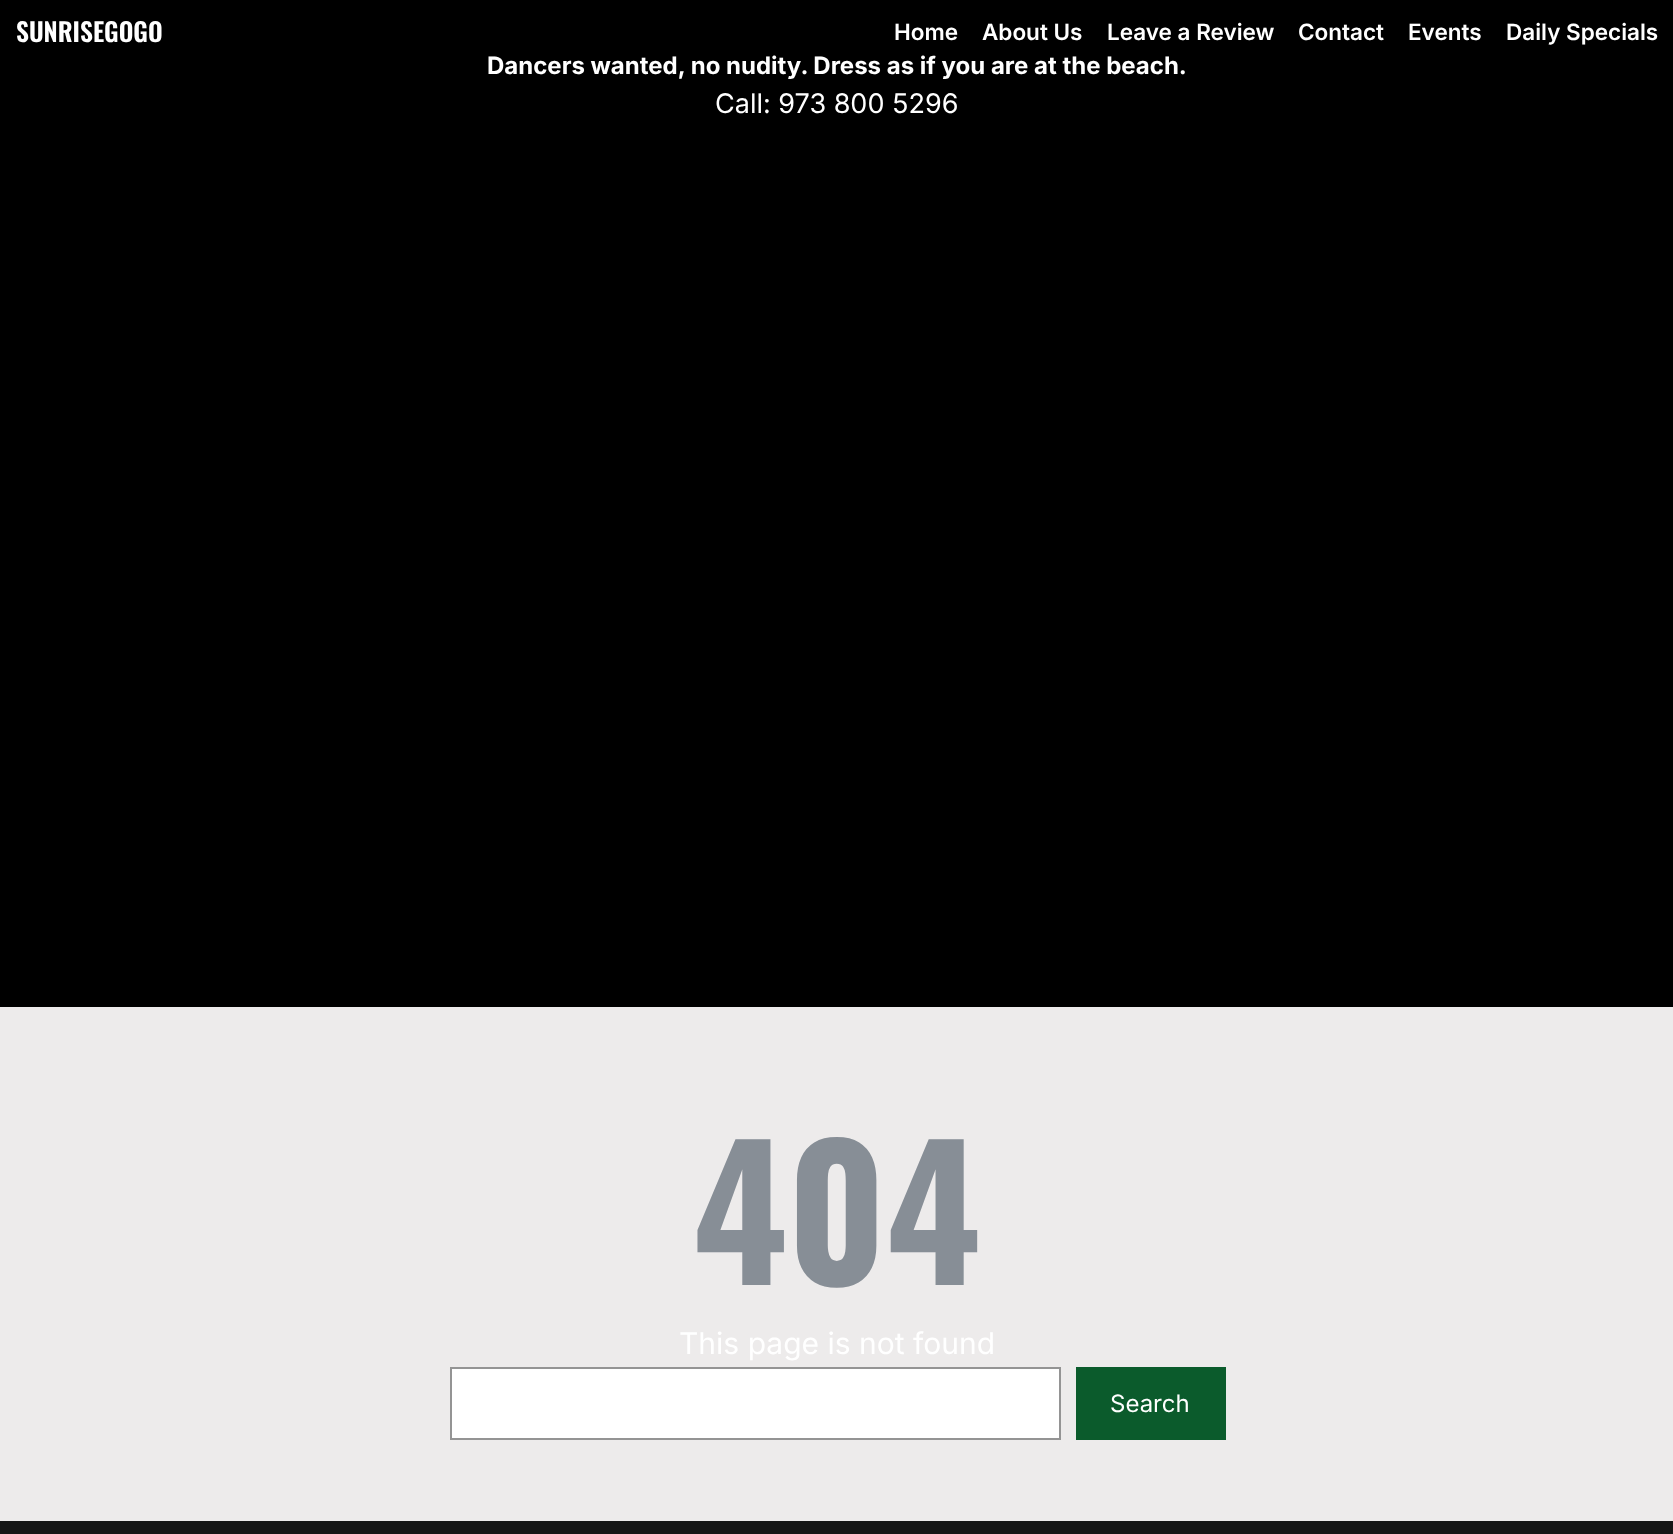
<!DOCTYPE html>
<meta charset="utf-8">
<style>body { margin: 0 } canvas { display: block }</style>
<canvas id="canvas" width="1673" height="1534"></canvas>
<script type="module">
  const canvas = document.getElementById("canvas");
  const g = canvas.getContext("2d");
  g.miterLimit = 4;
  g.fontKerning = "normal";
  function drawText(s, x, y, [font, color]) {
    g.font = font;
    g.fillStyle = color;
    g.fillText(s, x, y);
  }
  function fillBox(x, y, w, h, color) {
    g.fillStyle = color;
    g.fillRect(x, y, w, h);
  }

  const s1 = ["600 25.5px Oswald", "#FFFFFF"];
  const s2 = ["600 22.5px Inter", "#FFFFFF"];
  const s3 = ["bold 24px Inter", "#FFFFFF"];
  const s4 = ["27px Inter", "#FFFFFF"];
  const s5 = ["bold 180px Oswald", "#878E96"];
  const s6 = ["30px Inter", "#FFFFFF"];
  const s7 = ["24px Inter", "#FFFFFF"];

  fillBox(0, 0, 1673, 1534, "#000000");
  drawText("SUNRISEGOGO", 16, 42, s1);
  drawText("Home", 894, 40, s2);
  drawText("About Us", 982, 40, s2);
  drawText("Leave a Review", 1107, 40, s2);
  drawText("Contact", 1298, 40, s2);
  drawText("Events", 1408, 40, s2);
  drawText("Daily Specials", 1506, 40, s2);
  drawText("Dancers wanted, no nudity. Dress as if you are at the beach.", 487, 74, s3);
  drawText("Call: 973 800 5296", 715, 113, s4);
  fillBox(0, 1007, 1673, 514, "#EDEBEB");
  drawText("404", 693, 1285, s5);
  drawText("This page is not found", 679, 1354, s6);
  g.beginPath();
  g.rect(451, 1368, 609, 71);
  g.fill();
  g.strokeStyle = "#949494";
  g.lineWidth = 2;
  g.stroke();
  fillBox(1076, 1367, 150, 73, "#0B5B2C");
  drawText("Search", 1110, 1412, s7);
  fillBox(0, 1521, 1673, 13, "#161616");
</script>
